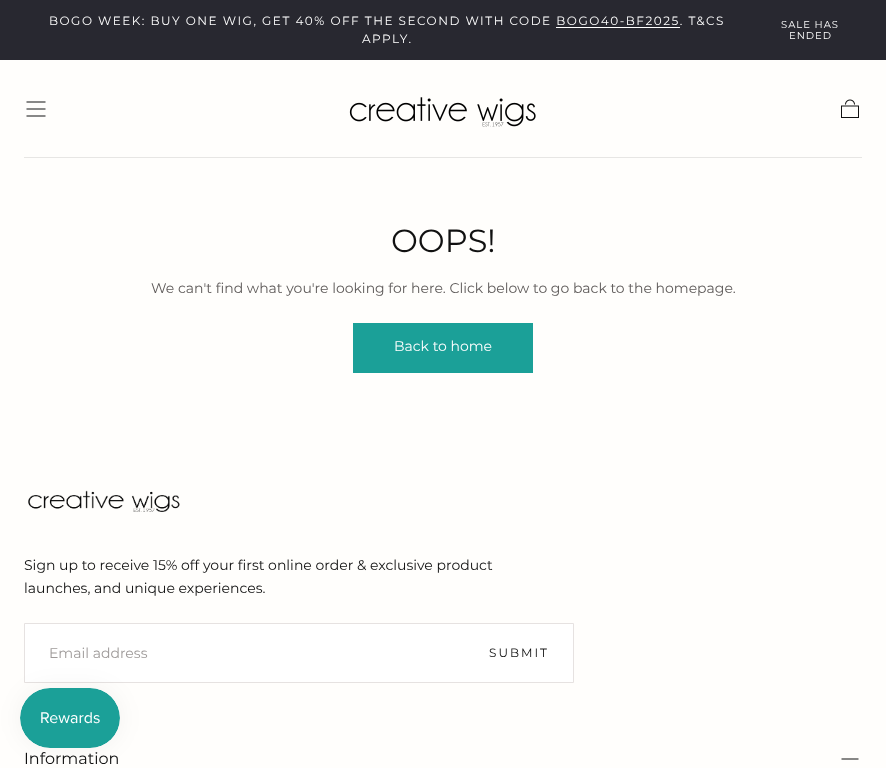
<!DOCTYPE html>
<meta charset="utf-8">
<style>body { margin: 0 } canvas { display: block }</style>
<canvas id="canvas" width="886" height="768"></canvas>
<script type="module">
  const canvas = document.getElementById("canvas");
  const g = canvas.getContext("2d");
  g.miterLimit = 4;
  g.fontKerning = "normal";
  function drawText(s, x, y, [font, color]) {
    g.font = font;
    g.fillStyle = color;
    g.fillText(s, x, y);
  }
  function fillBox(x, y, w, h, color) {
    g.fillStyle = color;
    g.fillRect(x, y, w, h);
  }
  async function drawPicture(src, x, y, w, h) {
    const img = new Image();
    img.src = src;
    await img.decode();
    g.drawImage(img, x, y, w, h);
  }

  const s1 = ["12px Montserrat", "#FFFFFF"];
  const s2 = ["10px Montserrat", "#FFFFFF"];
  const s3 = ["32px Montserrat", "#111111"];
  const s4 = ["14px Montserrat", "#5E5A59"];
  const s5 = ["14px Montserrat", "#FFFFFF"];
  const s6 = ["14px Montserrat", "#111111"];
  const s7 = ["14px Montserrat", "#9E9A99"];
  const s8 = ["12px Montserrat", "#111111"];
  const s9 = ["16px Montserrat", "#111111"];

  fillBox(0, 0, 886, 768, "#FFFEFC");
  fillBox(0, 0, 886, 60, "#282830");
  g.letterSpacing = "1.5px";
  drawText("BOGO WEEK: BUY ONE WIG, GET 40% OFF THE SECOND WITH CODE BOGO40-BF2025. T&CS", 49, 25, s1);
  fillBox(556, 27, 124, 1, "#FFFFFF");
  drawText("APPLY.", 362, 43, s1);
  g.letterSpacing = "1px";
  drawText("SALE HAS", 781, 28, s2);
  drawText("ENDED", 789, 39, s2);
  await drawPicture("pic1.png", 26, 101, 20, 16);
  await drawPicture("pic2.png", 349, 97, 187, 30);
  await drawPicture("pic3.png", 841, 99, 18, 19);
  fillBox(24, 157, 838, 1, "#E7E6E4");
  g.letterSpacing = "0px";
  drawText("OOPS!", 391, 252, s3);
  drawText("We can't find what you're looking for here. Click below to go back to the homepage.", 151, 293, s4);
  fillBox(353, 323, 180, 50, "#1BA098");
  drawText("Back to home", 394, 351, s5);
  await drawPicture("pic4.png", 28, 490, 152, 22);
  drawText("Sign up to receive 15% off your first online order & exclusive product", 24, 570, s6);
  drawText("launches, and unique experiences.", 24, 593, s6);
  g.fillStyle = "#FFFFFF";
  g.beginPath();
  g.rect(24.5, 623.5, 549, 59);
  g.fill();
  g.strokeStyle = "#E6E2E1";
  g.stroke();
  drawText("Email address", 49, 658, s7);
  g.letterSpacing = "2px";
  drawText("SUBMIT", 489, 657, s8);
  g.letterSpacing = "0px";
  drawText("Information", 24, 764, s9);
  g.beginPath();
  g.moveTo(842, 759);
  g.lineTo(858, 759);
  g.strokeStyle = "#111111";
  g.lineCap = "square";
  g.stroke();
  g.fillStyle = "rgba(0, 0, 0, 0.05)";
  g.filter = "blur(12.5px)";
  g.beginPath();
  g.roundRect(20, 688, 100, 60, 30);
  g.fill();
  g.filter = "none";
  await drawPicture("pic5.png", 20, 688, 100, 60);
</script>
